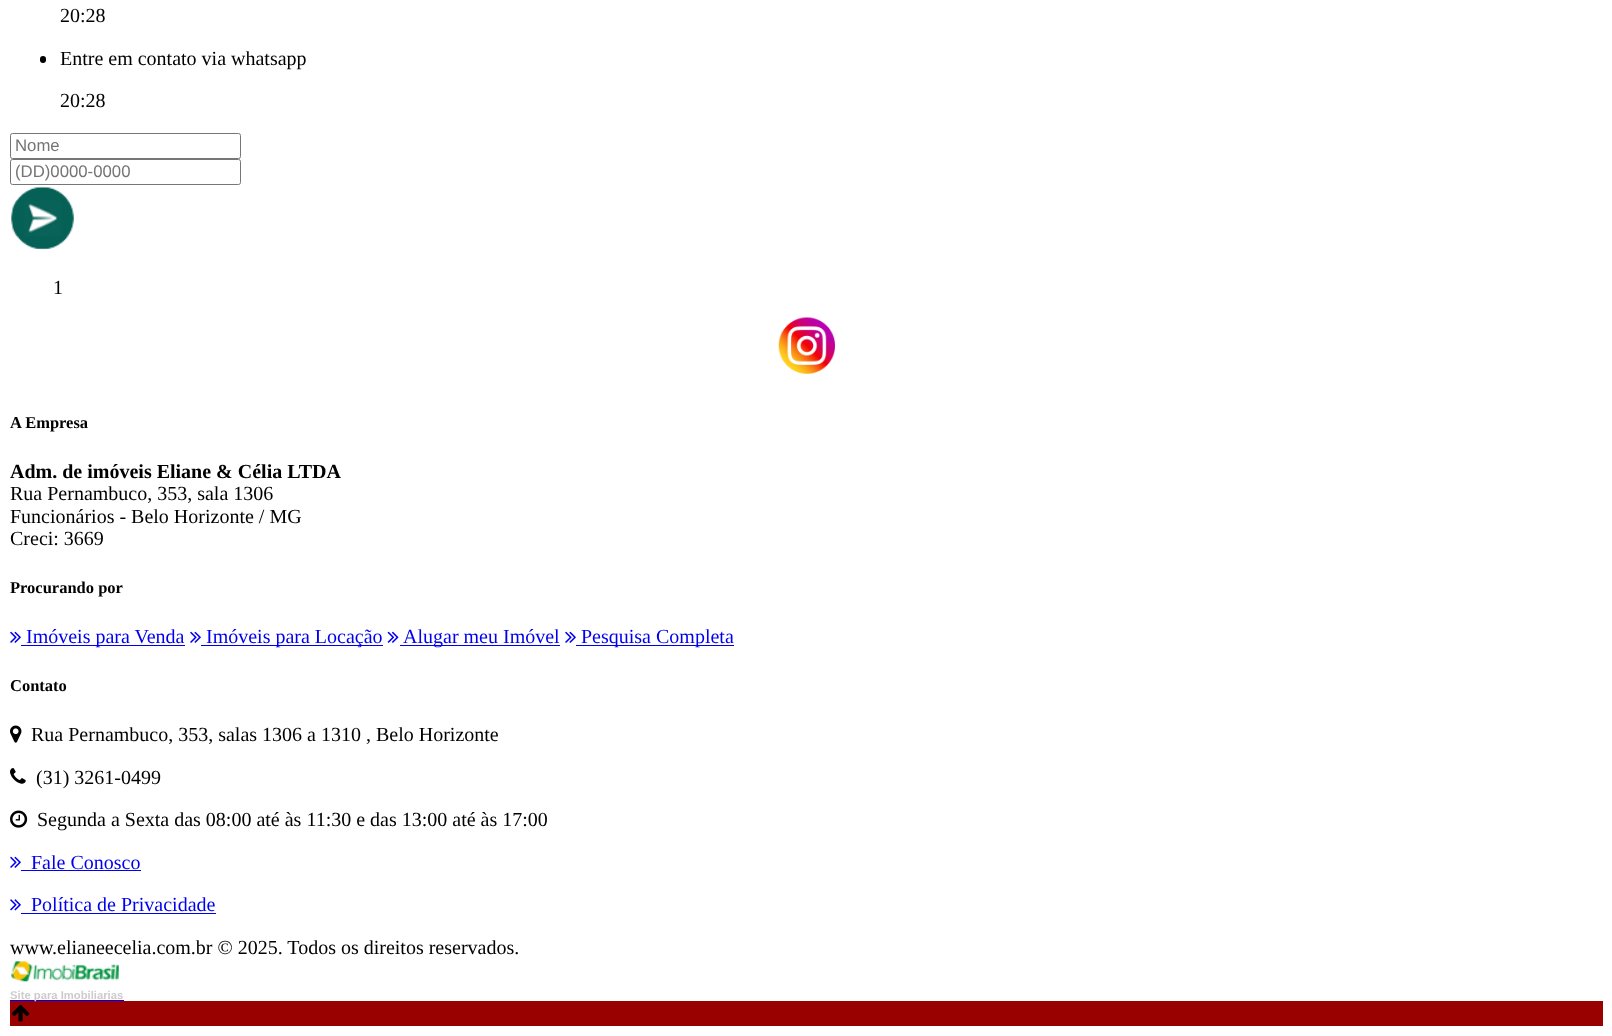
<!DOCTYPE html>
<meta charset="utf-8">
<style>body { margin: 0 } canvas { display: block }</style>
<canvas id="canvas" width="1612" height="1036"></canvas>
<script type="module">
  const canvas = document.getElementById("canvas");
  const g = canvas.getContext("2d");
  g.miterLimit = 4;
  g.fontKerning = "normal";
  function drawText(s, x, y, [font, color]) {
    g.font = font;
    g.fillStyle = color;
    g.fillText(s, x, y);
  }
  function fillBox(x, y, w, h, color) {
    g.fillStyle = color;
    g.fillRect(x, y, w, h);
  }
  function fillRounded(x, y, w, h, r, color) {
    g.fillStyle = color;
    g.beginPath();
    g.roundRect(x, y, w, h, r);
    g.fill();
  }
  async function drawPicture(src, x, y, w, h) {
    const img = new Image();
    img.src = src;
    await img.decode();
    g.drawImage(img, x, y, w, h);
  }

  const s1 = ["20px Liberation Serif", "#000000"];
  const s2 = ["16.75px Liberation Sans", "#757575"];
  const s3 = ["bold 16.5px Liberation Serif", "#000000"];
  const s4 = ["bold 20px Liberation Serif", "#000000"];
  const s5 = ["20px Liberation Serif", "#0000EE"];
  const s6 = ["bold 11.25px Liberation Sans", "#CCCCCC"];

  fillBox(0, 0, 1612, 1036, "#FFFFFF");
  drawText("20:28", 60, 22, s1);
  fillRounded(40, 56, 6, 7, 3, "#000000");
  drawText("Entre em contato via whatsapp", 60, 65, s1);
  drawText("20:28", 60, 107, s1);
  g.beginPath();
  g.roundRect(10.5, 133.5, 230, 25, 2);
  g.strokeStyle = "#767676";
  g.stroke();
  drawText("Nome", 15, 151, s2);
  g.beginPath();
  g.roundRect(10.5, 159.5, 230, 25, 2);
  g.stroke();
  drawText("(DD)0000-0000", 15, 177, s2);
  await drawPicture("pic1.png", 11, 186, 63, 64);
  drawText("1", 53, 294, s1);
  await drawPicture("pic2.png", 778, 317, 57, 57);
  drawText("A Empresa", 10, 428, s3);
  drawText("Adm. de imóveis Eliane & Célia LTDA", 10, 478, s4);
  drawText("Rua Pernambuco, 353, sala 1306", 10, 500, s1);
  drawText("Funcionários - Belo Horizonte / MG", 10, 523, s1);
  drawText("Creci: 3669", 10, 545, s1);
  drawText("Procurando por", 10, 593, s3);
  await drawPicture("pic3.png", 10, 631, 11, 12);
  fillBox(21, 645, 164, 1, "#0000EE");
  drawText("Imóveis para Venda", 26, 643, s5);
  await drawPicture("pic3.png", 190, 631, 11, 12);
  fillBox(201, 645, 182, 1, "#0000EE");
  drawText("Imóveis para Locação", 206, 643, s5);
  await drawPicture("pic4.png", 387, 631, 12, 12);
  fillBox(400, 645, 160, 1, "#0000EE");
  drawText("Alugar meu Imóvel", 403, 643, s5);
  await drawPicture("pic3.png", 565, 631, 11, 12);
  fillBox(576, 645, 158, 1, "#0000EE");
  drawText("Pesquisa Completa", 581, 643, s5);
  drawText("Contato", 10, 691, s3);
  await drawPicture("pic5.png", 10, 725, 12, 18);
  drawText("Rua Pernambuco, 353, salas 1306 a 1310 , Belo Horizonte", 31, 741, s1);
  await drawPicture("pic6.png", 10, 768, 16, 16);
  drawText("(31) 3261-0499", 36, 784, s1);
  await drawPicture("pic7.png", 10, 810, 18, 18);
  drawText("Segunda a Sexta das 08:00 até às 11:30 e das 13:00 até às 17:00", 37, 826, s1);
  await drawPicture("pic3.png", 10, 856, 11, 12);
  drawText("Fale Conosco", 31, 869, s5);
  fillBox(21, 870, 120, 1, "#0000EE");
  await drawPicture("pic8.png", 10, 899, 11, 12);
  drawText("Política de Privacidade", 31, 911, s5);
  fillBox(21, 913, 195, 1, "#0000EE");
  drawText("www.elianeecelia.com.br © 2025. Todos os direitos reservados.", 10, 954, s1);
  await drawPicture("pic9.png", 11, 961, 108, 21);
  fillBox(10, 1000, 114, 1, "#0000EE");
  fillBox(10, 1001, 1593, 25, "#990000");
  drawText("Site para Imobiliarias", 10, 999, s6);
  await drawPicture("pic10.png", 11, 1005, 19, 17);
</script>
